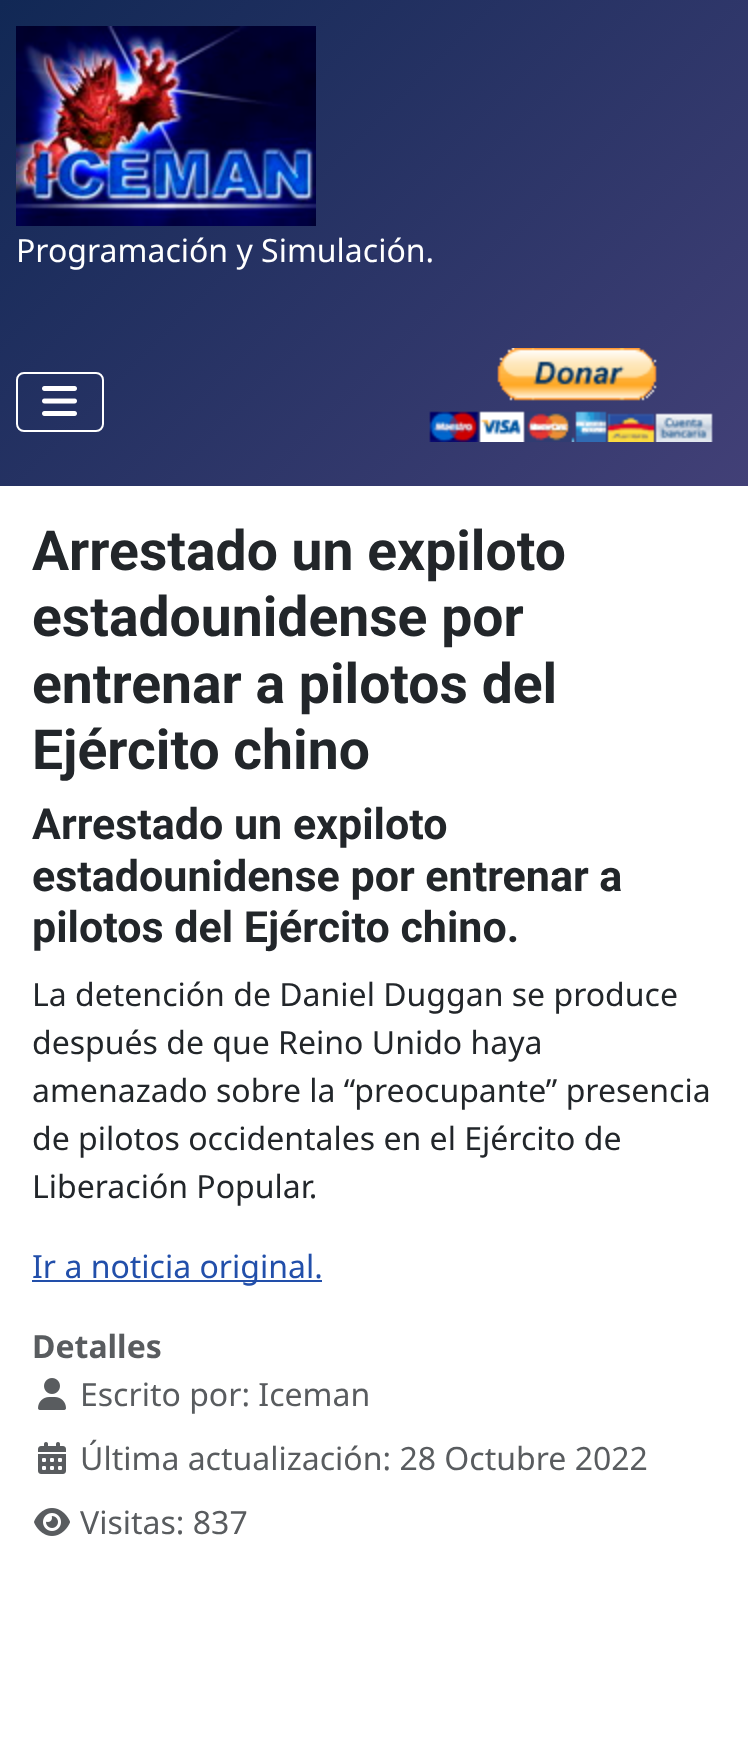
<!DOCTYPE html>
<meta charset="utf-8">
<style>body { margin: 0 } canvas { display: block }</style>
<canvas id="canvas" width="748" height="1753"></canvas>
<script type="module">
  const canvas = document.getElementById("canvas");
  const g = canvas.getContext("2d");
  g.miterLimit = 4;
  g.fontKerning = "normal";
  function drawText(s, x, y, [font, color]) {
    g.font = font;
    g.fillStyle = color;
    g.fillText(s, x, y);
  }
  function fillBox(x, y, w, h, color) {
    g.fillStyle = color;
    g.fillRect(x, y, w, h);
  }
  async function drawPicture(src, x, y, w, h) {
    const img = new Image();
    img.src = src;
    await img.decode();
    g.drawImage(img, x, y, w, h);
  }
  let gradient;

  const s1 = ["32px Noto Sans", "#FFFFFF"];
  const s2 = ["bold 55.25px Roboto", "#22262A"];
  const s3 = ["bold 43px Roboto", "#22262A"];
  const s4 = ["32px Noto Sans", "#22262A"];
  const s5 = ["32px Noto Sans", "#224FAA"];
  const s6 = ["bold 32px Noto Sans", "#595C5F"];
  const s7 = ["32px Noto Sans", "#595C5F"];

  fillBox(0, 0, 748, 1753, "#FFFFFF");
  gradient = g.createLinearGradient(66, -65, 683, 552);
  gradient.addColorStop(0, "#112855");
  gradient.addColorStop(1, "#424077");
  g.fillStyle = gradient;
  g.fillRect(0, 0, 748, 486);
  await drawPicture("pic1.png", 16, 26, 300, 200);
  drawText("Programación y Simulación.", 16, 262, s1);
  g.beginPath();
  g.roundRect(17, 373, 86, 58, 7);
  g.strokeStyle = "#FFFFFF";
  g.lineWidth = 2;
  g.stroke();
  await drawPicture("pic2.png", 42, 386, 35, 30);
  await drawPicture("pic3.png", 429, 348, 284, 94);
  drawText("Arrestado un expiloto", 32, 570, s2);
  drawText("estadounidense por", 32, 636, s2);
  drawText("entrenar a pilotos del", 32, 703, s2);
  drawText("Ejército chino", 32, 769, s2);
  drawText("Arrestado un expiloto", 32, 839, s3);
  drawText("estadounidense por entrenar a", 32, 891, s3);
  drawText("pilotos del Ejército chino.", 32, 942, s3);
  drawText("La detención de Daniel Duggan se produce", 32, 1006, s4);
  drawText("después de que Reino Unido haya", 32, 1054, s4);
  drawText("amenazado sobre la “preocupante” presencia", 32, 1102, s4);
  drawText("de pilotos occidentales en el Ejército de", 32, 1150, s4);
  drawText("Liberación Popular.", 32, 1198, s4);
  fillBox(32, 1280, 290, 2, "#224FAA");
  drawText("Ir a noticia original.", 32, 1278, s5);
  drawText("Detalles", 32, 1358, s6);
  await drawPicture("pic4.png", 38, 1378, 28, 32);
  drawText("Escrito por: Iceman", 80, 1406, s7);
  await drawPicture("pic5.png", 38, 1442, 28, 32);
  drawText("Última actualización: 28 Octubre 2022", 80, 1470, s7);
  await drawPicture("pic6.png", 34, 1508, 36, 28);
  drawText("Visitas: 837", 80, 1534, s7);
</script>
